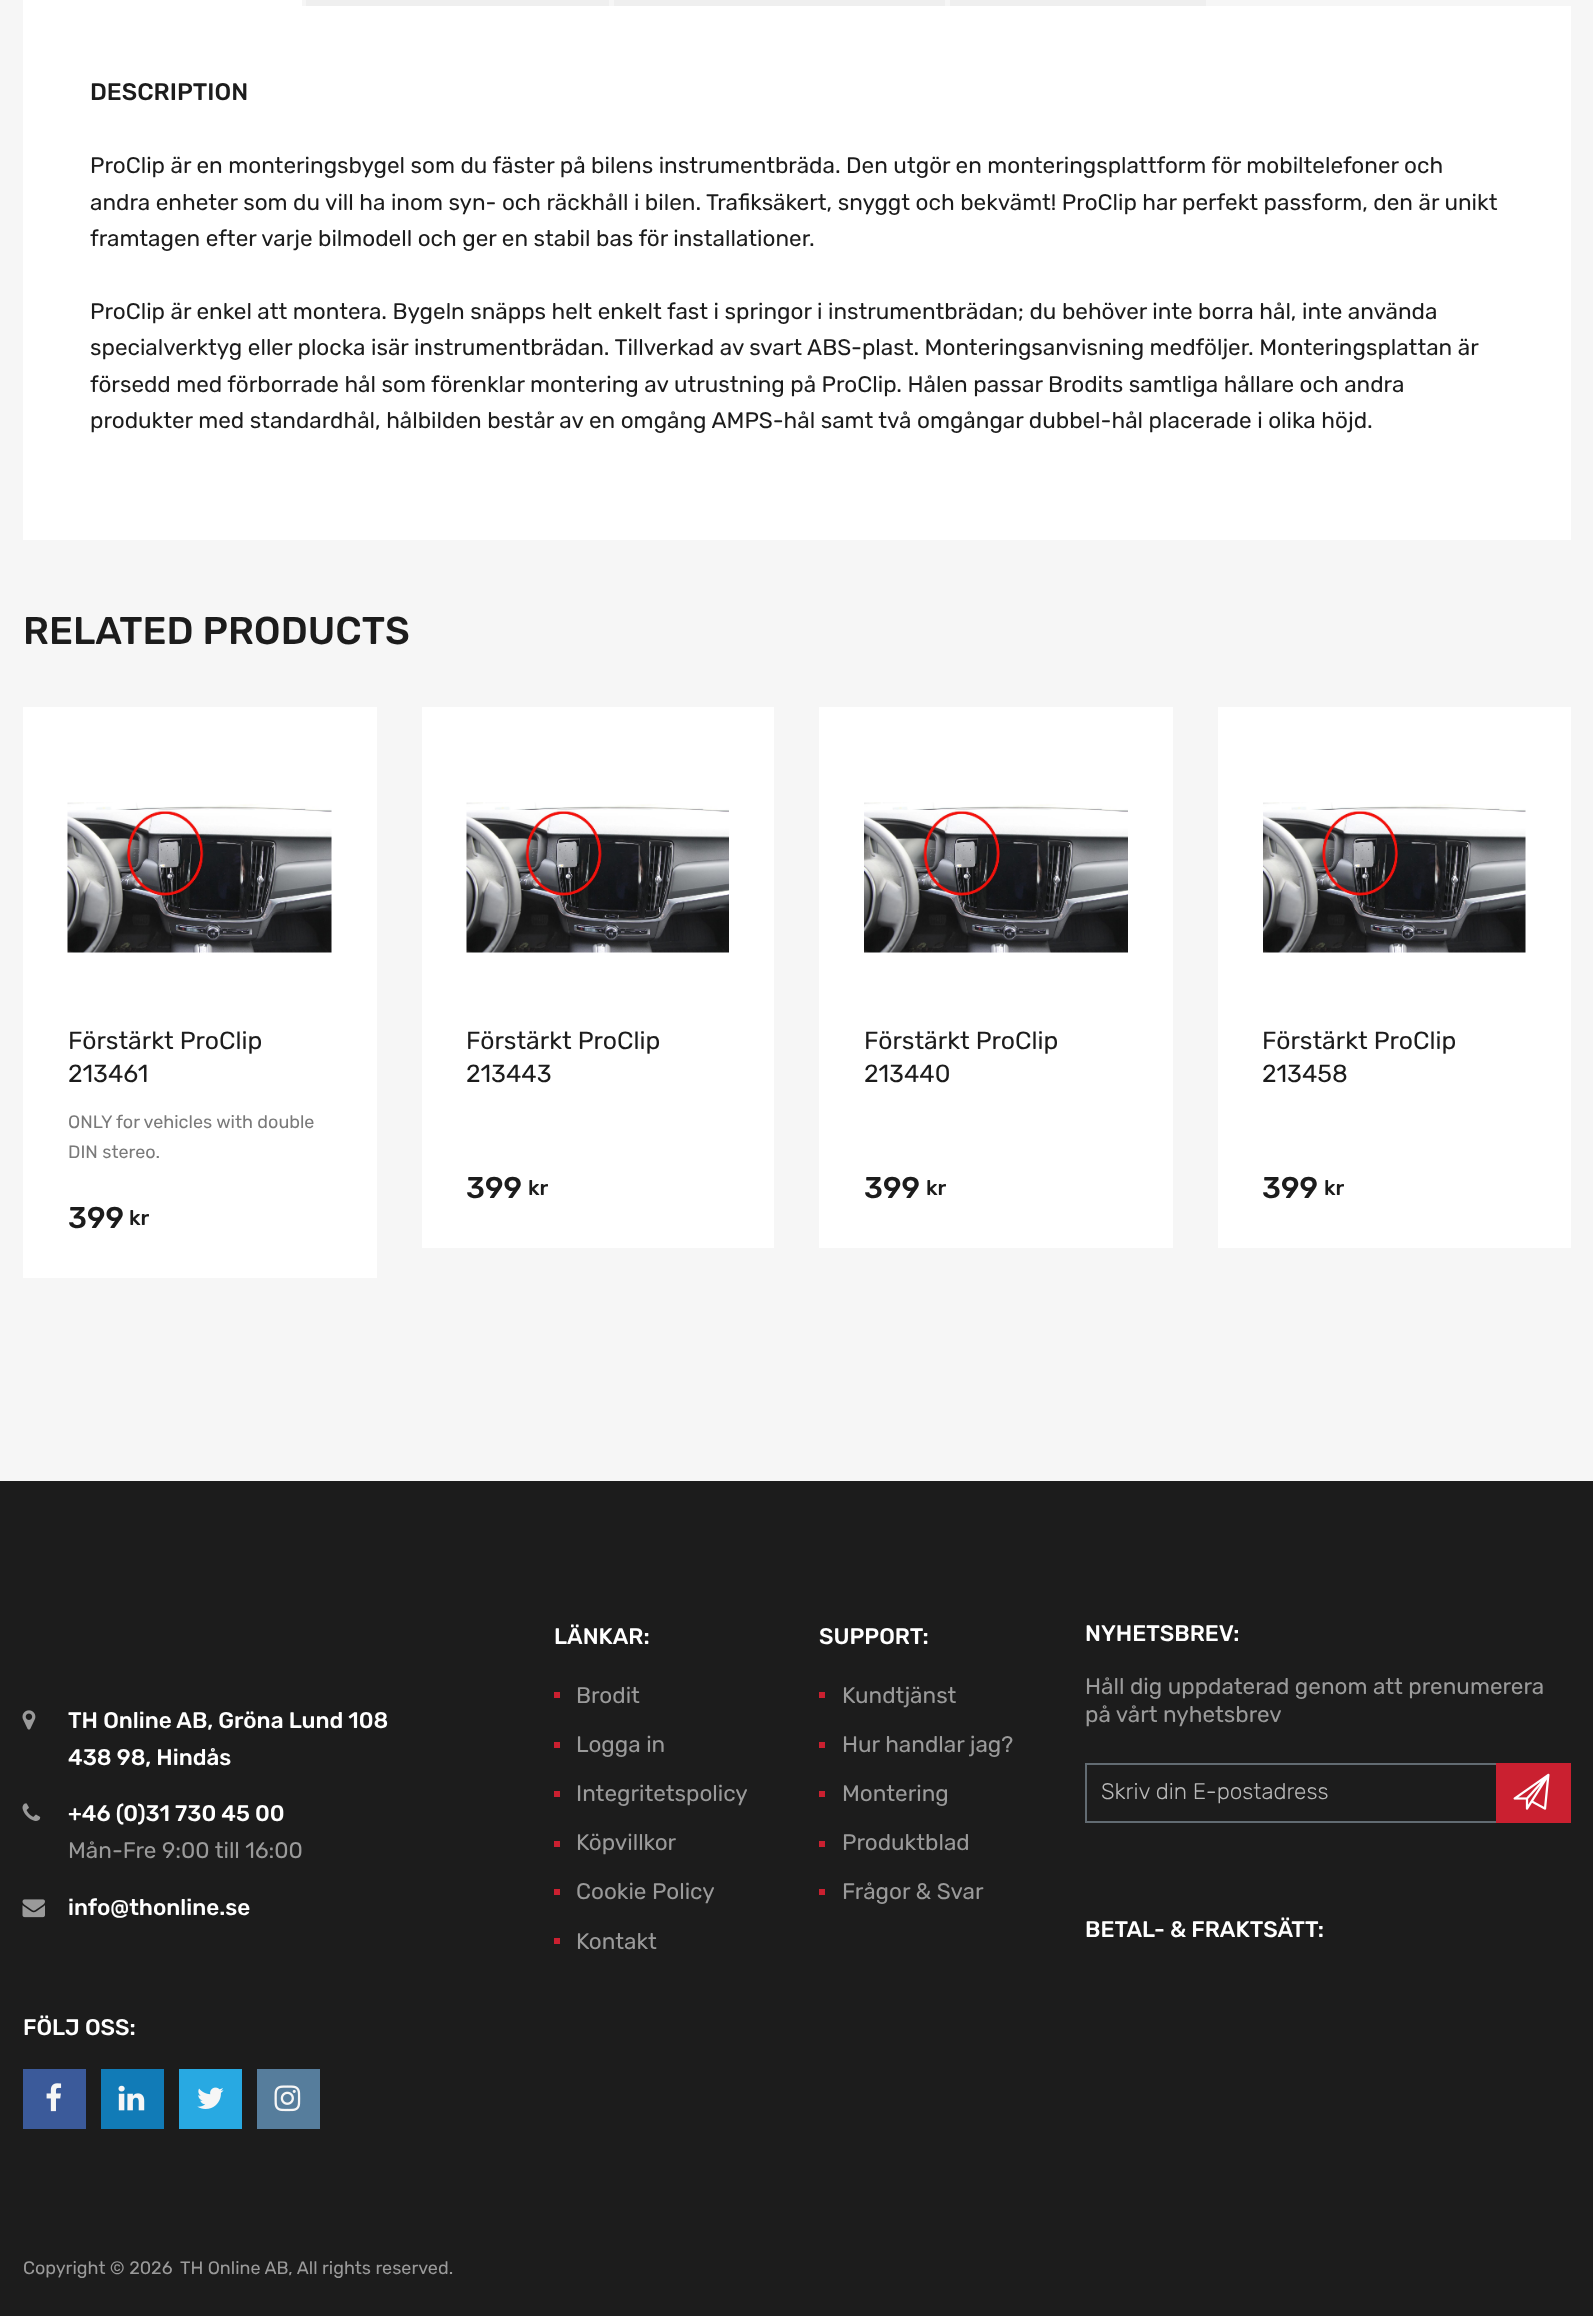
<!DOCTYPE html>
<meta charset="utf-8">
<style>body { margin: 0 } canvas { display: block }</style>
<canvas id="canvas" width="1593" height="2316"></canvas>
<script type="module">
  const canvas = document.getElementById("canvas");
  const g = canvas.getContext("2d");
  g.miterLimit = 4;
  g.fontKerning = "normal";
  function drawText(s, x, y, [font, color]) {
    g.font = font;
    g.fillStyle = color;
    g.fillText(s, x, y);
  }
  function fillBox(x, y, w, h, color) {
    g.fillStyle = color;
    g.fillRect(x, y, w, h);
  }
  async function drawPicture(src, x, y, w, h) {
    const img = new Image();
    img.src = src;
    await img.decode();
    g.drawImage(img, x, y, w, h);
  }

  const s1 = ["500 24px Rubik", "#1C1C1C"];
  const s2 = ["22.5px Rubik", "#1C1C1C"];
  const s3 = ["500 38.6px Rubik", "#1C1C1C"];
  const s4 = ["24.75px Rubik", "#1C1C1C"];
  const s5 = ["18px Rubik", "#7A7A7A"];
  const s6 = ["500 30px Rubik", "#1C1C1C"];
  const s7 = ["500 21px Rubik", "#1C1C1C"];
  const s8 = ["500 22.5px Rubik", "#FFFFFF"];
  const s9 = ["22.5px Rubik", "#9A9A9A"];
  const s10 = ["300 22.5px Rubik", "#B9B9B9"];
  const s11 = ["18px Rubik", "#9A9A9A"];

  fillBox(0, 0, 1593, 2316, "#F6F6F6");
  fillBox(23, 0, 279, 6, "#FFFFFF");
  fillBox(306, 0, 303, 6, "#EFEFEF");
  fillBox(614, 0, 331, 6, "#EFEFEF");
  fillBox(950, 0, 256, 6, "#EFEFEF");
  fillBox(23, 6, 1548, 534, "#FFFFFF");
  drawText("DESCRIPTION", 90, 100, s1);
  drawText("ProClip är en monteringsbygel som du fäster på bilens instrumentbräda. Den utgör en monteringsplattform för mobiltelefoner och", 90, 173, s2);
  drawText("andra enheter som du vill ha inom syn- och räckhåll i bilen. Trafiksäkert, snyggt och bekvämt! ProClip har perfekt passform, den är unikt", 90, 210, s2);
  drawText("framtagen efter varje bilmodell och ger en stabil bas för installationer.", 90, 246, s2);
  drawText("ProClip är enkel att montera. Bygeln snäpps helt enkelt fast i springor i instrumentbrädan; du behöver inte borra hål, inte använda", 90, 319, s2);
  drawText("specialverktyg eller plocka isär instrumentbrädan. Tillverkad av svart ABS-plast. Monteringsanvisning medföljer. Monteringsplattan är", 90, 355, s2);
  drawText("försedd med förborrade hål som förenklar montering av utrustning på ProClip. Hålen passar Brodits samtliga hållare och andra", 90, 392, s2);
  drawText("produkter med standardhål, hålbilden består av en omgång AMPS-hål samt två omgångar dubbel-hål placerade i olika höjd.", 90, 428, s2);
  drawText("RELATED PRODUCTS", 23, 644, s3);
  fillBox(23, 707, 354, 571, "#FFFFFF");
  await drawPicture("pic1.png", 67, 802, 265, 151);
  drawText("Förstärkt ProClip", 68, 1049, s4);
  drawText("213461", 68, 1082, s4);
  drawText("ONLY for vehicles with double", 68, 1128, s5);
  drawText("DIN stereo.", 68, 1158, s5);
  drawText("399", 68, 1228, s6);
  drawText("kr", 129, 1225, s7);
  fillBox(422, 707, 352, 541, "#FFFFFF");
  await drawPicture("pic2.png", 466, 802, 263, 151);
  drawText("Förstärkt ProClip", 466, 1049, s4);
  drawText("213443", 466, 1082, s4);
  drawText("399", 466, 1198, s6);
  drawText("kr", 528, 1195, s7);
  fillBox(819, 707, 354, 541, "#FFFFFF");
  await drawPicture("pic3.png", 864, 802, 264, 151);
  drawText("Förstärkt ProClip", 864, 1049, s4);
  drawText("213440", 864, 1082, s4);
  drawText("399", 864, 1198, s6);
  drawText("kr", 926, 1195, s7);
  fillBox(1218, 707, 353, 541, "#FFFFFF");
  await drawPicture("pic4.png", 1263, 802, 263, 151);
  drawText("Förstärkt ProClip", 1262, 1049, s4);
  drawText("213458", 1262, 1082, s4);
  drawText("399", 1262, 1198, s6);
  drawText("kr", 1324, 1195, s7);
  fillBox(0, 1481, 1593, 835, "#1C1C1C");
  await drawPicture("pic5.png", 22, 1710, 14, 20);
  drawText("TH Online AB, Gröna Lund 108", 68, 1728, s8);
  drawText("438 98, Hindås", 68, 1765, s8);
  await drawPicture("pic6.png", 22, 1803, 19, 18);
  drawText("+46 (0)31 730 45 00", 68, 1821, s8);
  drawText("Mån-Fre 9:00 till 16:00", 68, 1858, s9);
  await drawPicture("pic7.png", 22, 1899, 23, 19);
  drawText("info@thonline.se", 68, 1915, s8);
  drawText("FÖLJ OSS:", 23, 2035, s8);
  fillBox(23, 2069, 63, 60, "#3B5A9A");
  await drawPicture("pic8.png", 46, 2083, 16, 29);
  fillBox(101, 2069, 63, 60, "#117BB7");
  await drawPicture("pic9.png", 118, 2085, 27, 26);
  fillBox(179, 2069, 63, 60, "#28A9E2");
  await drawPicture("pic10.png", 197, 2087, 27, 22);
  fillBox(257, 2069, 63, 60, "#567D9C");
  await drawPicture("pic11.png", 274, 2085, 27, 27);
  drawText("LÄNKAR:", 554, 1644, s8);
  fillBox(554, 1692, 6, 6, "#CA2030");
  drawText("Brodit", 576, 1703, s9);
  fillBox(554, 1742, 6, 6, "#CA2030");
  drawText("Logga in", 576, 1752, s9);
  fillBox(554, 1791, 6, 6, "#CA2030");
  drawText("Integritetspolicy", 576, 1801, s9);
  fillBox(554, 1841, 6, 6, "#CA2030");
  drawText("Köpvillkor", 576, 1850, s9);
  fillBox(554, 1889, 6, 6, "#CA2030");
  drawText("Cookie Policy", 576, 1899, s9);
  fillBox(554, 1938, 6, 6, "#CA2030");
  drawText("Kontakt", 576, 1949, s9);
  drawText("SUPPORT:", 819, 1644, s8);
  fillBox(819, 1692, 6, 6, "#CA2030");
  drawText("Kundtjänst", 842, 1703, s9);
  fillBox(819, 1742, 6, 6, "#CA2030");
  drawText("Hur handlar jag?", 842, 1752, s9);
  fillBox(819, 1791, 6, 6, "#CA2030");
  drawText("Montering", 842, 1801, s9);
  fillBox(819, 1841, 6, 6, "#CA2030");
  drawText("Produktblad", 842, 1850, s9);
  fillBox(819, 1889, 6, 6, "#CA2030");
  drawText("Frågor & Svar", 842, 1899, s9);
  drawText("NYHETSBREV:", 1085, 1641, s8);
  drawText("Håll dig uppdaterad genom att prenumerera", 1085, 1694, s9);
  drawText("på vårt nyhetsbrev", 1085, 1722, s9);
  g.strokeStyle = "#626B72";
  g.lineWidth = 2;
  g.strokeRect(1086, 1764, 484, 58);
  drawText("Skriv din E-postadress", 1101, 1799, s10);
  fillBox(1496, 1763, 75, 60, "#CA2030");
  await drawPicture("pic12.png", 1513, 1773, 37, 37);
  drawText("BETAL- & FRAKTSÄTT:", 1085, 1937, s8);
  drawText("Copyright © 2026", 23, 2274, s11);
  drawText("TH Online AB, All rights reserved.", 180, 2274, s11);
</script>
